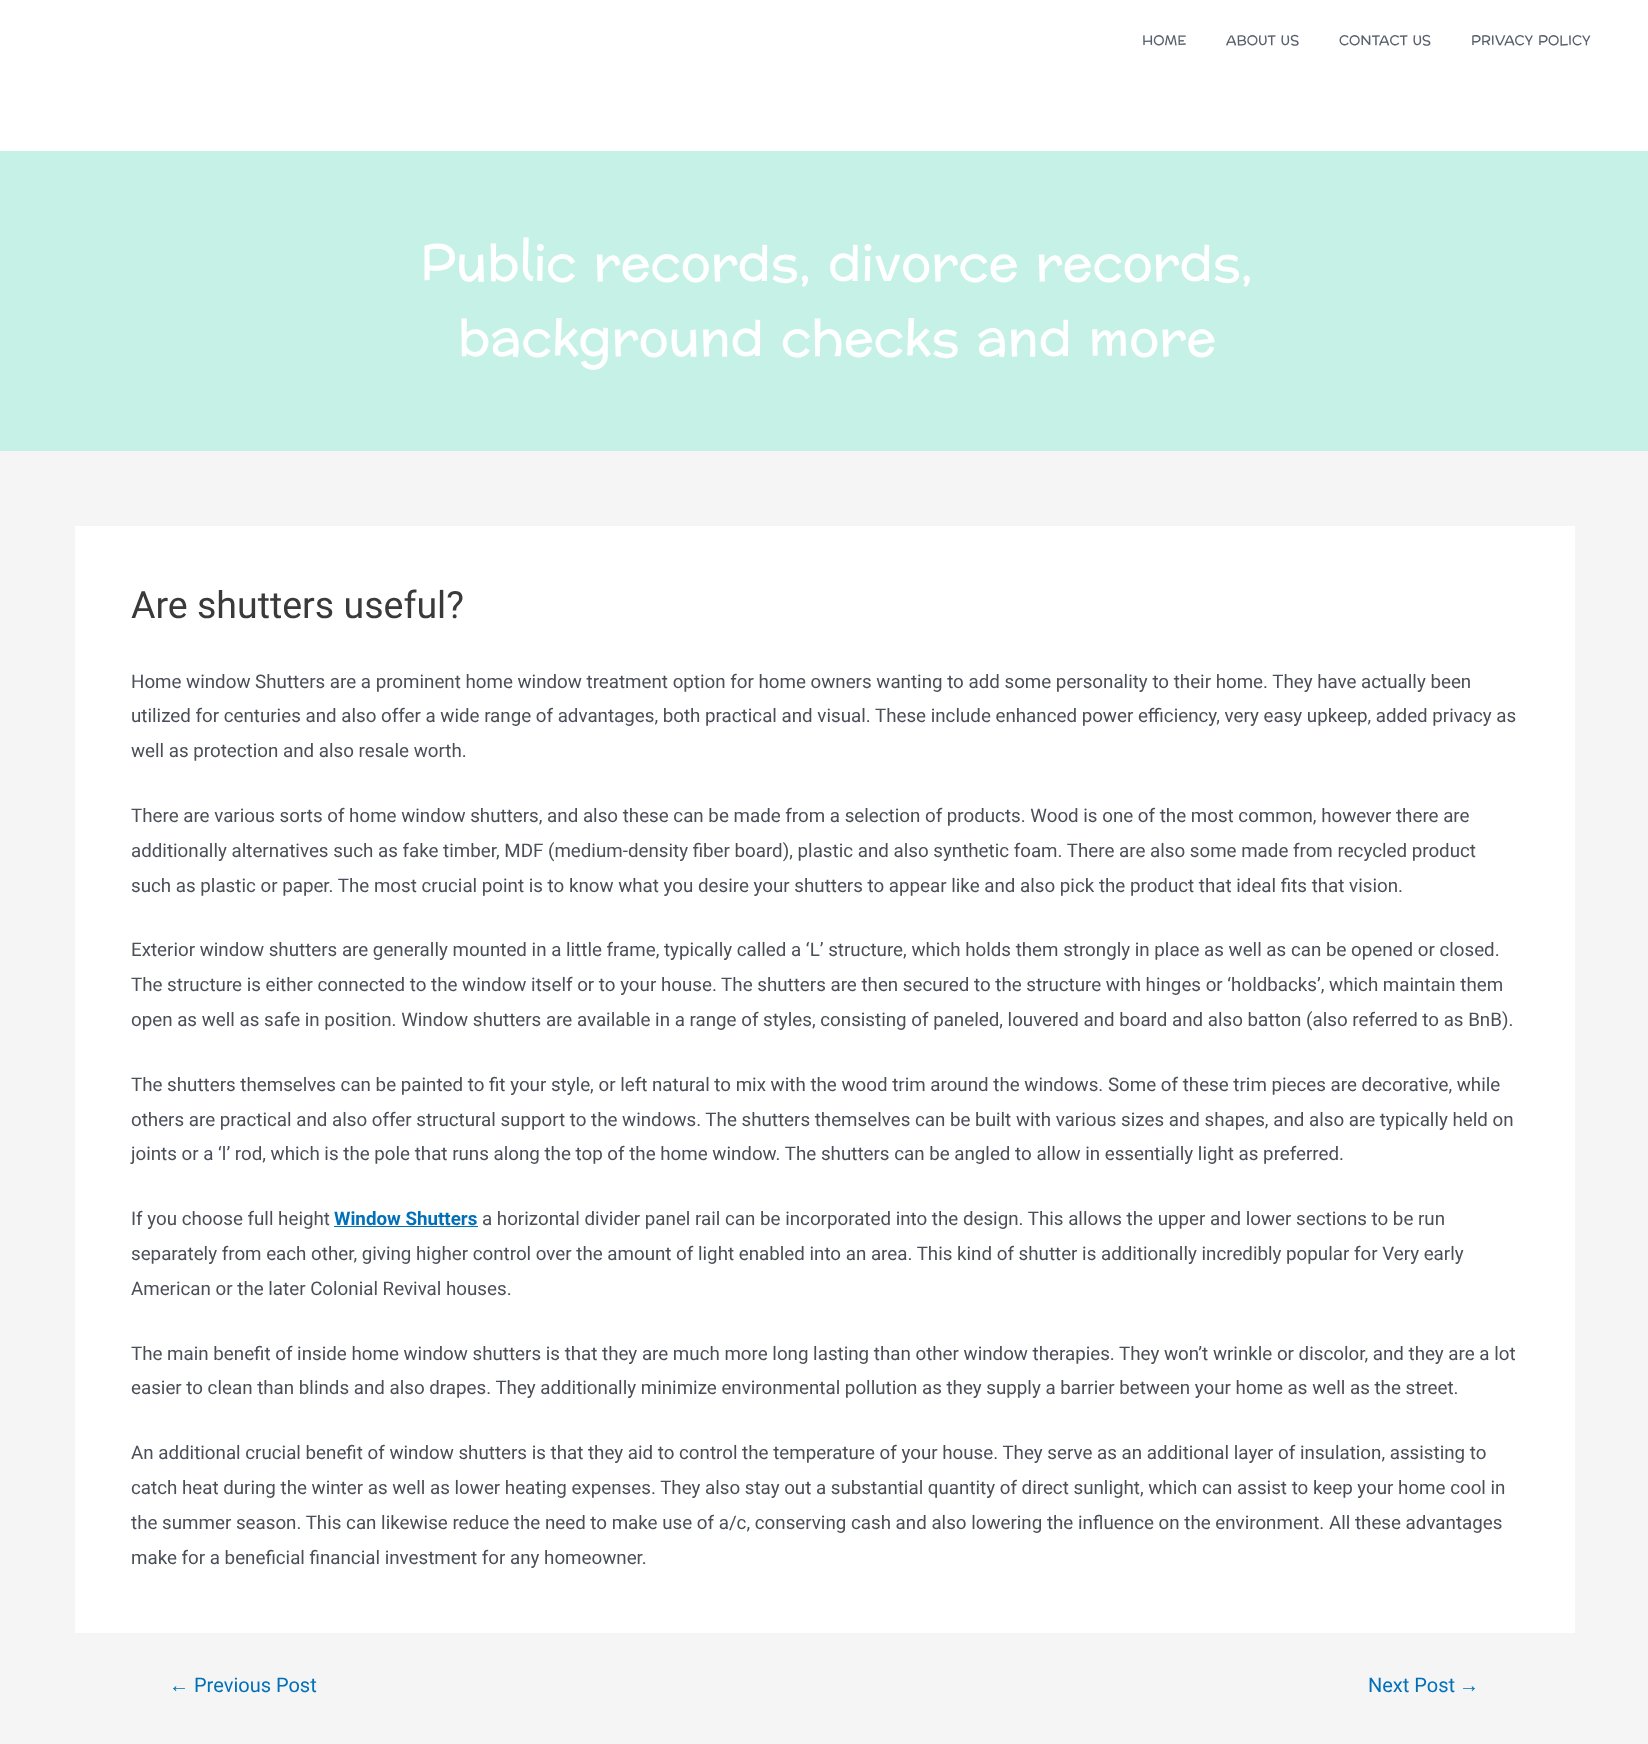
<!DOCTYPE html>
<meta charset="utf-8">
<style>body { margin: 0 } canvas { display: block }</style>
<canvas id="canvas" width="1648" height="1744"></canvas>
<script type="module">
  const canvas = document.getElementById("canvas");
  const g = canvas.getContext("2d");
  g.miterLimit = 4;
  g.fontKerning = "normal";
  function drawText(s, x, y, [font, color]) {
    g.font = font;
    g.fillStyle = color;
    g.fillText(s, x, y);
  }
  function fillBox(x, y, w, h, color) {
    g.fillStyle = color;
    g.fillRect(x, y, w, h);
  }

  const s1 = ["13.75px Preahvihear", "#59606D"];
  const s2 = ["50px Preahvihear", "#FFFFFF"];
  const s3 = ["37.5px Roboto", "#3A3A3A"];
  const s4 = ["18.75px Roboto", "#4B4F58"];
  const s5 = ["bold 18.75px Roboto", "#0170B9"];
  const s6 = ["20px Liberation Sans", "#0170B9"];
  const s7 = ["20px Roboto", "#0170B9"];

  fillBox(0, 0, 1648, 1744, "#F5F5F5");
  fillBox(0, 0, 1648, 151, "#FFFFFF");
  drawText("HOME", 1142, 45, s1);
  drawText("ABOUT US", 1226, 45, s1);
  drawText("CONTACT US", 1339, 45, s1);
  drawText("PRIVACY POLICY", 1471, 45, s1);
  fillBox(0, 151, 1648, 300, "#C6F1E7");
  drawText("Public records, divorce records,", 420, 280, s2);
  drawText("background checks and more", 458, 355, s2);
  fillBox(75, 526, 1500, 1107, "#FFFFFF");
  drawText("Are shutters useful?", 131, 618, s3);
  drawText("Home window Shutters are a prominent home window treatment option for home owners wanting to add some personality to their home. They have actually been", 131, 688, s4);
  drawText("utilized for centuries and also offer a wide range of advantages, both practical and visual. These include enhanced power efficiency, very easy upkeep, added privacy as", 131, 722, s4);
  drawText("well as protection and also resale worth.", 131, 757, s4);
  drawText("There are various sorts of home window shutters, and also these can be made from a selection of products. Wood is one of the most common, however there are", 131, 822, s4);
  drawText("additionally alternatives such as fake timber, MDF (medium-density fiber board), plastic and also synthetic foam. There are also some made from recycled product", 131, 857, s4);
  drawText("such as plastic or paper. The most crucial point is to know what you desire your shutters to appear like and also pick the product that ideal fits that vision.", 131, 892, s4);
  drawText("Exterior window shutters are generally mounted in a little frame, typically called a ‘L’ structure, which holds them strongly in place as well as can be opened or closed.", 131, 956, s4);
  drawText("The structure is either connected to the window itself or to your house. The shutters are then secured to the structure with hinges or ‘holdbacks’, which maintain them", 131, 991, s4);
  drawText("open as well as safe in position. Window shutters are available in a range of styles, consisting of paneled, louvered and board and also batton (also referred to as BnB).", 131, 1026, s4);
  drawText("The shutters themselves can be painted to fit your style, or left natural to mix with the wood trim around the windows. Some of these trim pieces are decorative, while", 131, 1091, s4);
  drawText("others are practical and also offer structural support to the windows. The shutters themselves can be built with various sizes and shapes, and also are typically held on", 131, 1126, s4);
  drawText("joints or a ‘l’ rod, which is the pole that runs along the top of the home window. The shutters can be angled to allow in essentially light as preferred.", 131, 1160, s4);
  drawText("If you choose full height", 131, 1225, s4);
  drawText("Window Shutters", 334, 1225, s5);
  fillBox(334, 1226, 144, 1, "#0170B9");
  drawText("a horizontal divider panel rail can be incorporated into the design. This allows the upper and lower sections to be run", 482, 1225, s4);
  drawText("separately from each other, giving higher control over the amount of light enabled into an area. This kind of shutter is additionally incredibly popular for Very early", 131, 1260, s4);
  drawText("American or the later Colonial Revival houses.", 131, 1295, s4);
  drawText("The main benefit of inside home window shutters is that they are much more long lasting than other window therapies. They won’t wrinkle or discolor, and they are a lot", 131, 1360, s4);
  drawText("easier to clean than blinds and also drapes. They additionally minimize environmental pollution as they supply a barrier between your home as well as the street.", 131, 1394, s4);
  drawText("An additional crucial benefit of window shutters is that they aid to control the temperature of your house. They serve as an additional layer of insulation, assisting to", 131, 1459, s4);
  drawText("catch heat during the winter as well as lower heating expenses. They also stay out a substantial quantity of direct sunlight, which can assist to keep your home cool in", 131, 1494, s4);
  drawText("the summer season. This can likewise reduce the need to make use of a/c, conserving cash and also lowering the influence on the environment. All these advantages", 131, 1529, s4);
  drawText("make for a beneficial financial investment for any homeowner.", 131, 1564, s4);
  drawText("←", 169, 1692, s6);
  drawText("Previous Post", 194, 1692, s7);
  drawText("Next Post", 1368, 1692, s7);
  drawText("→", 1459, 1692, s6);
</script>
